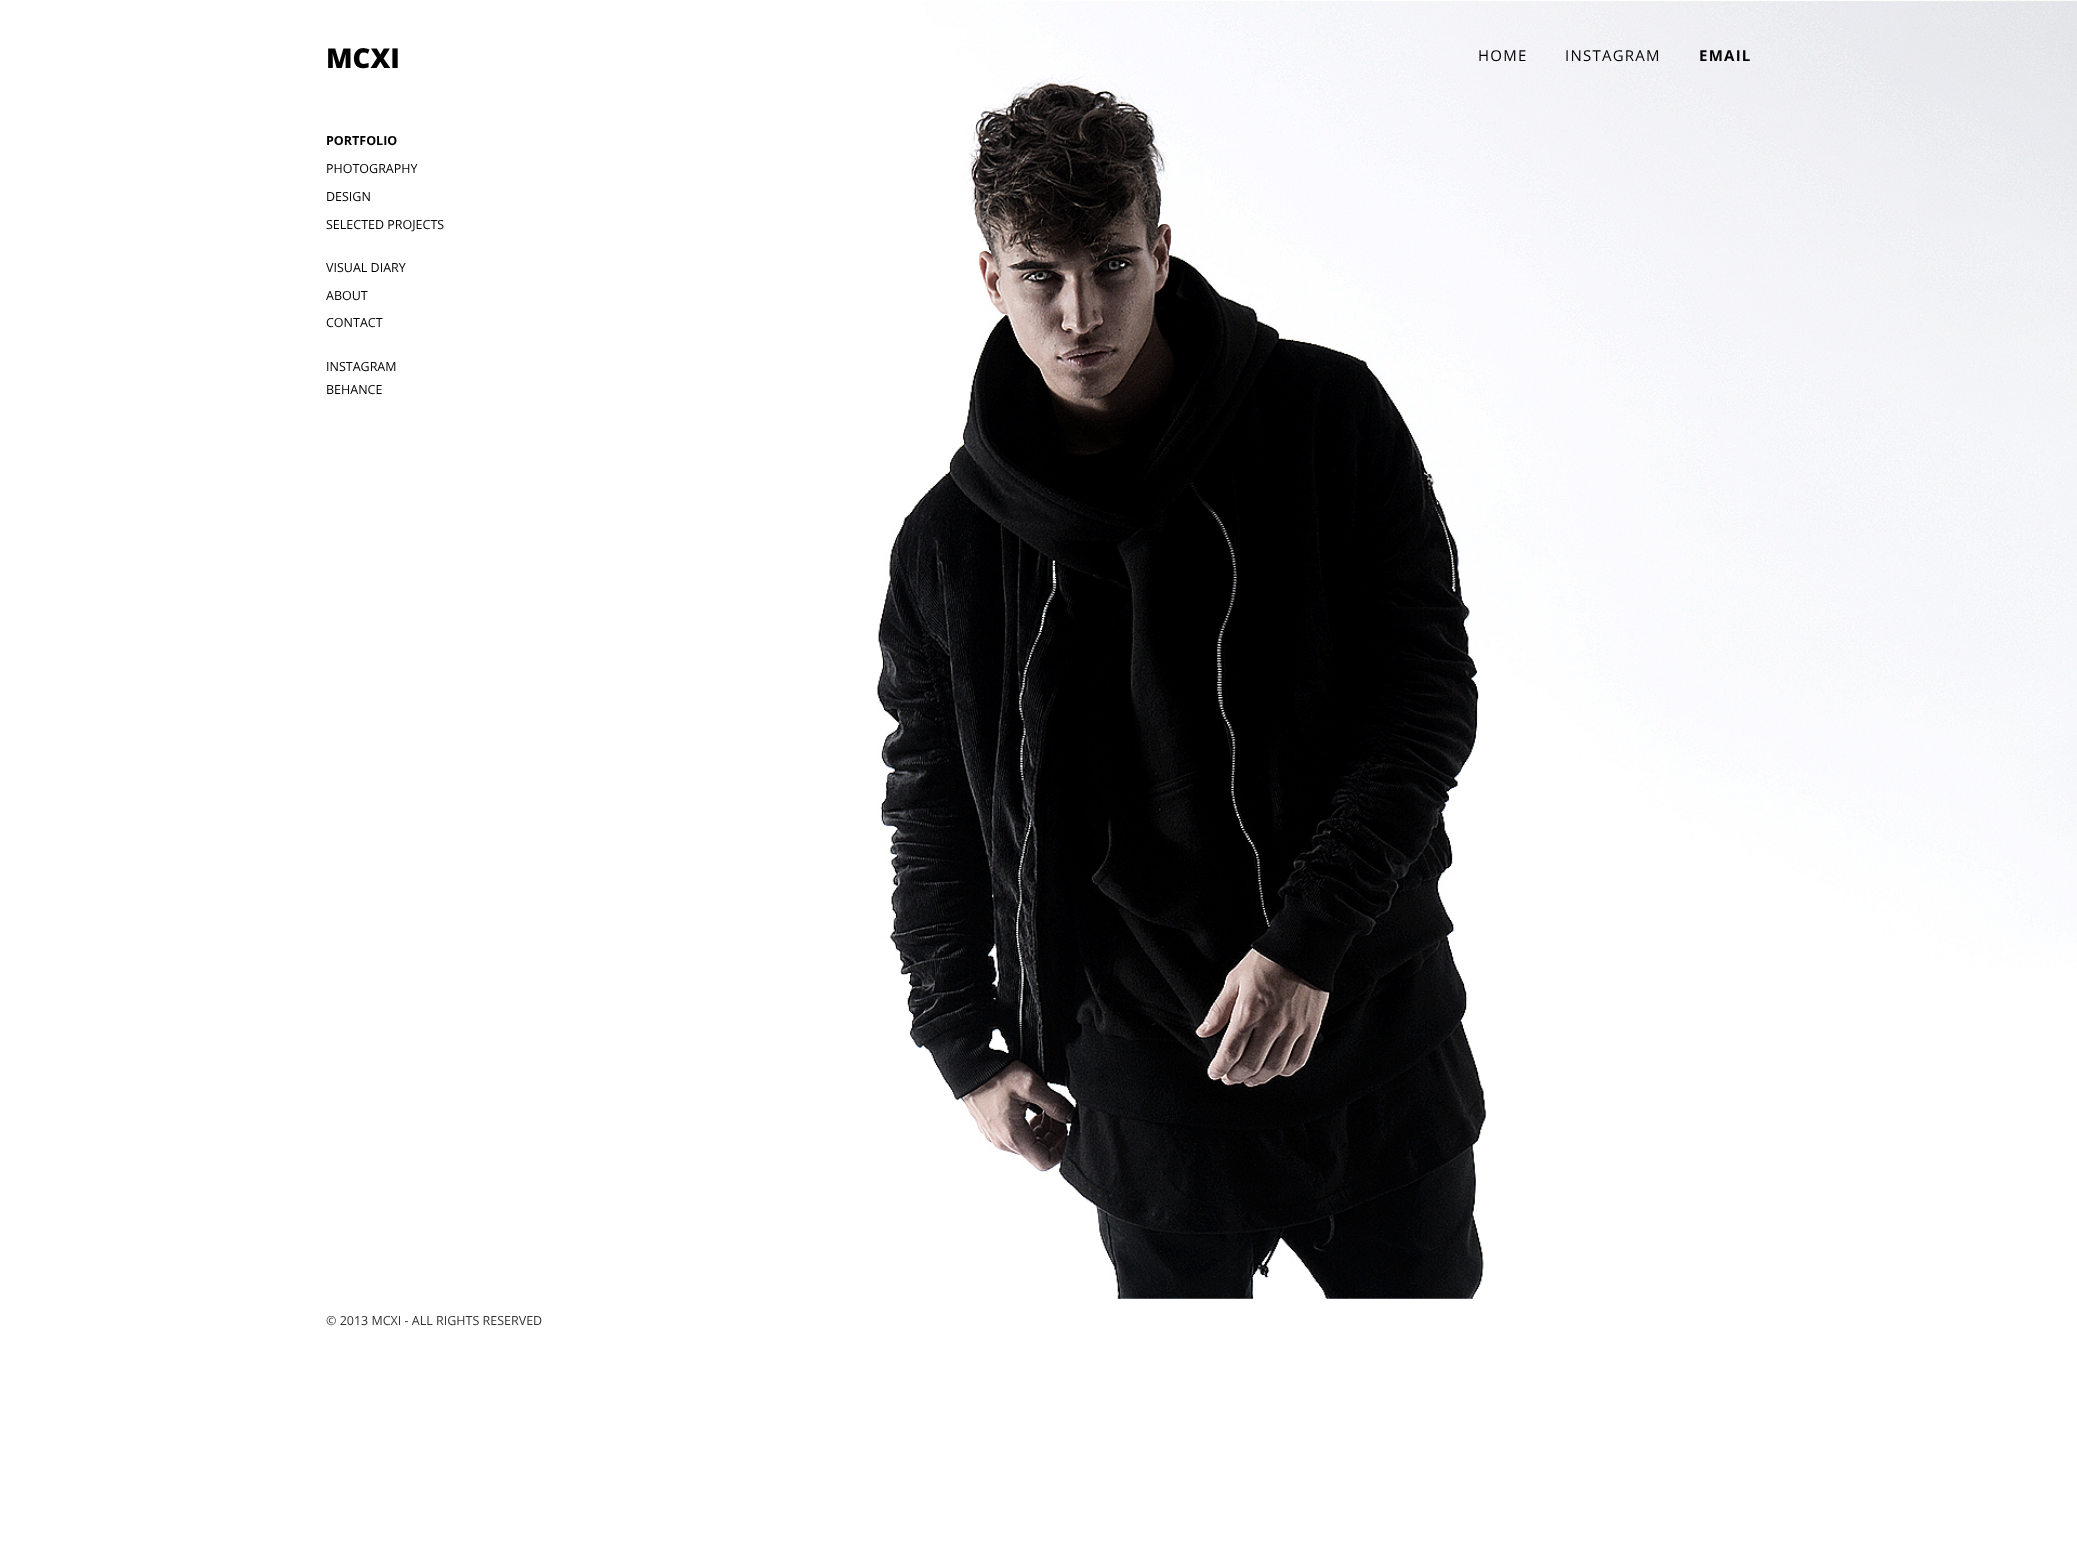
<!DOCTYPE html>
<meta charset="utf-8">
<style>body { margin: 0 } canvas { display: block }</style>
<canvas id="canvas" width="2077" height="1561"></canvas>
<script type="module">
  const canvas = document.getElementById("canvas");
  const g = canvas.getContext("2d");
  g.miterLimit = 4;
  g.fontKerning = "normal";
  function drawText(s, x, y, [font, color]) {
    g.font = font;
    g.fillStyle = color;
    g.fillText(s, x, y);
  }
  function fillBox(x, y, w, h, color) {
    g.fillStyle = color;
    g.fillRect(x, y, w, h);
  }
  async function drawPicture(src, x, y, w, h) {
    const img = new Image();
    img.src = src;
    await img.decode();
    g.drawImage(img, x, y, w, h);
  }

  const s1 = ["800 27.5px Open Sans", "#000000"];
  const s2 = ["15px Open Sans", "#000000"];
  const s3 = ["bold 15px Open Sans", "#000000"];
  const s4 = ["bold 12.5px Open Sans", "#000000"];
  const s5 = ["12.5px Open Sans", "#000000"];
  const s6 = ["12.5px Open Sans", "#333333"];

  fillBox(0, 0, 2077, 1561, "#FFFFFF");
  await drawPicture("pic1.png", 877, 0, 1200, 1299);
  drawText("MCXI", 326, 68, s1);
  g.letterSpacing = "1.25px";
  drawText("HOME", 1478, 61, s2);
  drawText("INSTAGRAM", 1565, 61, s2);
  drawText("EMAIL", 1699, 61, s3);
  g.letterSpacing = "0px";
  drawText("PORTFOLIO", 326, 145, s4);
  drawText("PHOTOGRAPHY", 326, 173, s5);
  drawText("DESIGN", 326, 201, s5);
  drawText("SELECTED PROJECTS", 326, 229, s5);
  drawText("VISUAL DIARY", 326, 272, s5);
  drawText("ABOUT", 326, 300, s5);
  drawText("CONTACT", 326, 327, s5);
  drawText("INSTAGRAM", 326, 371, s5);
  drawText("BEHANCE", 326, 394, s5);
  drawText("© 2013 MCXI - ALL RIGHTS RESERVED", 326, 1325, s6);
</script>
